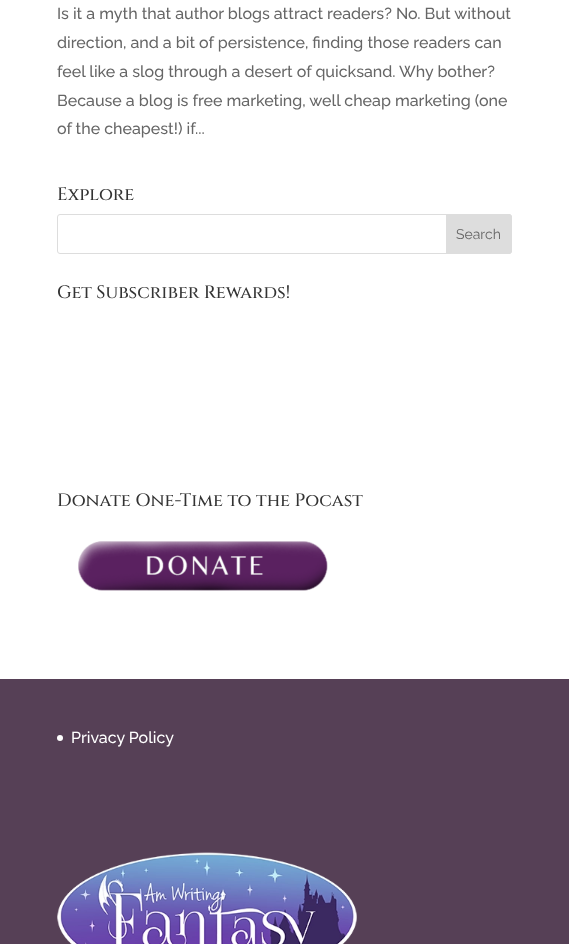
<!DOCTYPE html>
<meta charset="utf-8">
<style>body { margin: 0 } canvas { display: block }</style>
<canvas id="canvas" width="569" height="944"></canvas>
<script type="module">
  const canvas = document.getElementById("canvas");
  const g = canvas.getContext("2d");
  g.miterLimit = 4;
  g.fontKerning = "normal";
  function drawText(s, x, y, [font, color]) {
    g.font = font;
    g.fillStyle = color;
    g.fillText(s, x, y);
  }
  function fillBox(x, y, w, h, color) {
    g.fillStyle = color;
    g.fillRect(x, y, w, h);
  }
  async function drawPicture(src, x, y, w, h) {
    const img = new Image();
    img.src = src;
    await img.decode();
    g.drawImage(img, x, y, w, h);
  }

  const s1 = ["500 16px Raleway", "#666666"];
  const s2 = ["500 18px Cinzel", "#333333"];
  const s3 = ["14px Raleway", "#666666"];
  const s4 = ["500 16px Raleway", "#FFFFFF"];

  fillBox(0, 0, 569, 944, "#FFFFFF");
  drawText("Is it a myth that author blogs attract readers? No. But without", 57, 19, s1);
  drawText("direction, and a bit of persistence, finding those readers can", 57, 48, s1);
  drawText("feel like a slog through a desert of quicksand. Why bother?", 57, 77, s1);
  drawText("Because a blog is free marketing, well cheap marketing (one", 57, 106, s1);
  drawText("of the cheapest!) if...", 57, 134, s1);
  drawText("Explore", 57, 200, s2);
  g.beginPath();
  g.roundRect(57.5, 214.5, 454, 39, 2.5);
  g.strokeStyle = "#DDDDDD";
  g.stroke();
  g.fillStyle = "#DDDDDD";
  g.beginPath();
  g.roundRect(446.5, 214.5, 65, 39, [0, 2.5, 2.5, 0]);
  g.fill();
  g.stroke();
  drawText("Search", 456, 239, s3);
  drawText("Get Subscriber Rewards!", 57, 298, s2);
  drawText("Donate One-Time to the Pocast", 57, 506, s2);
  await drawPicture("pic1.png", 78, 541, 250, 50);
  fillBox(0, 679, 569, 265, "#564056");
  g.fillStyle = "#FFFFFF";
  g.beginPath();
  g.arc(60, 738, 3, 0, Math.PI * 2);
  g.fill();
  drawText("Privacy Policy", 71, 743, s4);
  await drawPicture("pic2.png", 57, 852, 300, 92);
</script>
